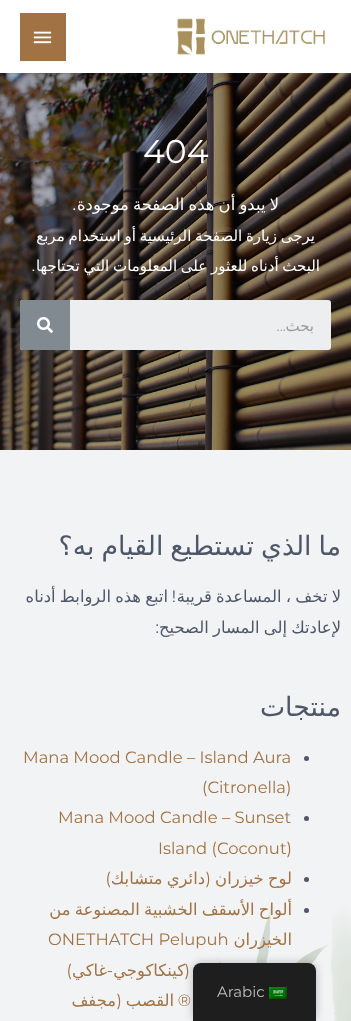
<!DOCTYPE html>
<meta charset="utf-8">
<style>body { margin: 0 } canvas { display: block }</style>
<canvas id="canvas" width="351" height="1021"></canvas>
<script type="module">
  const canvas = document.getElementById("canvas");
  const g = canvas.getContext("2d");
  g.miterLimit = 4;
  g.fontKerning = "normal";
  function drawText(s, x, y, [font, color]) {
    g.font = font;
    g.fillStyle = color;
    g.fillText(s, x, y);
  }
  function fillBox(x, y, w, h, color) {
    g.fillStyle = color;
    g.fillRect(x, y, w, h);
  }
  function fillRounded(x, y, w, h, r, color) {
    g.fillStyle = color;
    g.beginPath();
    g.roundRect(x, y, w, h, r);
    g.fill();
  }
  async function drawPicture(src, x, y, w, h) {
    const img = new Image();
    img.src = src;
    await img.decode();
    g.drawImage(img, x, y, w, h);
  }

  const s1 = ["100 33px Montserrat", "#FFFFFF"];
  const s2 = ["16.4px DejaVu Sans", "#FFFFFF"];
  const s3 = ["100 16.4px Montserrat", "#FFFFFF"];
  const s4 = ["15px DejaVu Sans", "#FFFFFF"];
  const s5 = ["100 15px Montserrat", "#FFFFFF"];
  const s6 = ["15px DejaVu Sans", "#9C9C9D"];
  const s7 = ["100 15px Montserrat", "#9C9C9D"];
  const s8 = ["26.75px DejaVu Sans", "#4E5768"];
  const s9 = ["16.4px DejaVu Sans", "#4E5768"];
  const s10 = ["100 16.4px Montserrat", "#4E5768"];
  const s11 = ["100 16.4px Montserrat", "#A17243"];
  const s12 = ["16.4px DejaVu Sans", "#A17243"];
  const s13 = ["100 15px Montserrat", "#BDBDBD"];

  fillBox(0, 0, 351, 1021, "#F2F3F5");
  fillBox(0, 0, 351, 73, "#FFFFFF");
  await drawPicture("pic1.png", 177, 18, 149, 37);
  fillBox(20, 13, 46, 48, "#A17243");
  await drawPicture("pic2.png", 33, 31, 19, 13);
  await drawPicture("pic3.png", 0, 73, 351, 377);
  drawText("404", 143, 163, s1);
  g.wordSpacing = "-1px";
  g.direction = "rtl";
  drawText("لا يبدو أن هذه الصفحة موجودة", 279, 210, s2);
  g.wordSpacing = "0px";
  drawText(".", 76, 210, s3);
  g.wordSpacing = "-1px";
  drawText("يرجى زيارة الصفحة الرئيسية أو استخدام مربع", 315, 241, s4);
  drawText("البحث أدناه للعثور على المعلومات التي تحتاجها", 320, 271, s4);
  g.wordSpacing = "0px";
  drawText(".", 35, 271, s5);
  fillRounded(20, 300, 311, 50, 3, "#ECEEEF");
  drawText("بحث", 314, 331, s6);
  drawText("...", 286, 331, s7);
  g.fillStyle = "#818A91";
  g.beginPath();
  g.roundRect(20, 300, 50, 50, [3, 0, 0, 3]);
  g.fill();
  await drawPicture("pic4.png", 37, 317, 16, 16);
  g.wordSpacing = "-1.5px";
  drawText("ما الذي تستطيع القيام به؟", 341, 555, s8);
  g.wordSpacing = "-1px";
  drawText("لا تخف ، المساعدة قريبة", 341, 602, s9);
  g.wordSpacing = "0px";
  drawText("!", 176, 602, s10);
  g.wordSpacing = "-1px";
  drawText("اتبع هذه الروابط أدناه", 168, 602, s9);
  drawText("لإعادتك إلى المسار الصحيح", 341, 633, s9);
  g.wordSpacing = "0px";
  drawText(":", 159, 633, s10);
  drawText("منتجات", 341, 716, s8);
  g.beginPath();
  g.arc(306.5, 758.5, 2.5, 0, Math.PI * 2);
  g.fill();
  g.direction = "ltr";
  drawText("Mana Mood Candle – Island Aura", 23, 763, s11);
  drawText("(Citronella)", 202, 793, s11);
  g.fillStyle = "#4E5768";
  g.beginPath();
  g.arc(306.5, 818.5, 2.5, 0, Math.PI * 2);
  g.fill();
  drawText("Mana Mood Candle – Sunset", 58, 823, s11);
  drawText("Island (Coconut)", 158, 854, s11);
  g.fillStyle = "#4E5768";
  g.beginPath();
  g.arc(306.5, 879.5, 2.5, 0, Math.PI * 2);
  g.fill();
  g.wordSpacing = "-1px";
  g.direction = "rtl";
  drawText("لوح خيزران", 292, 884, s12);
  g.wordSpacing = "0px";
  drawText("(", 211, 884, s11);
  g.wordSpacing = "-1px";
  drawText("دائري متشابك", 205, 884, s12);
  g.wordSpacing = "0px";
  drawText(")", 111, 884, s11);
  await drawPicture("pic5.png", 217, 904, 134, 117);
  g.fillStyle = "#4E5768";
  g.beginPath();
  g.arc(306.5, 910.5, 2.5, 0, Math.PI * 2);
  g.fill();
  g.wordSpacing = "-1px";
  drawText("ألواح الأسقف الخشبية المصنوعة من", 292, 915, s12);
  g.wordSpacing = "0px";
  drawText("الخيزران", 292, 945, s12);
  g.direction = "ltr";
  drawText("ONETHATCH Pelupuh", 48, 945, s11);
  g.direction = "rtl";
  drawText("(", 190, 976, s11);
  drawText("كينكاكوجي", 185, 976, s12);
  drawText("-", 113, 976, s11);
  drawText("غاكي", 107, 976, s12);
  drawText(")", 72, 976, s11);
  drawText("®", 191, 1006, s11);
  drawText("القصب", 174, 1006, s12);
  drawText("(", 122, 1006, s11);
  drawText("مجفف", 116, 1006, s12);
  g.fillStyle = "rgba(0, 0, 0, 0.25)";
  g.filter = "blur(4px)";
  g.beginPath();
  g.roundRect(193, 963, 123, 58, 8);
  g.fill();
  g.filter = "none";
  g.fillStyle = "#1E1E1E";
  g.beginPath();
  g.roundRect(193, 963, 123, 58, [8, 8, 0, 0]);
  g.fill();
  await drawPicture("pic6.png", 269, 987, 18, 12);
  g.direction = "ltr";
  drawText("Arabic", 217, 997, s13);
</script>
